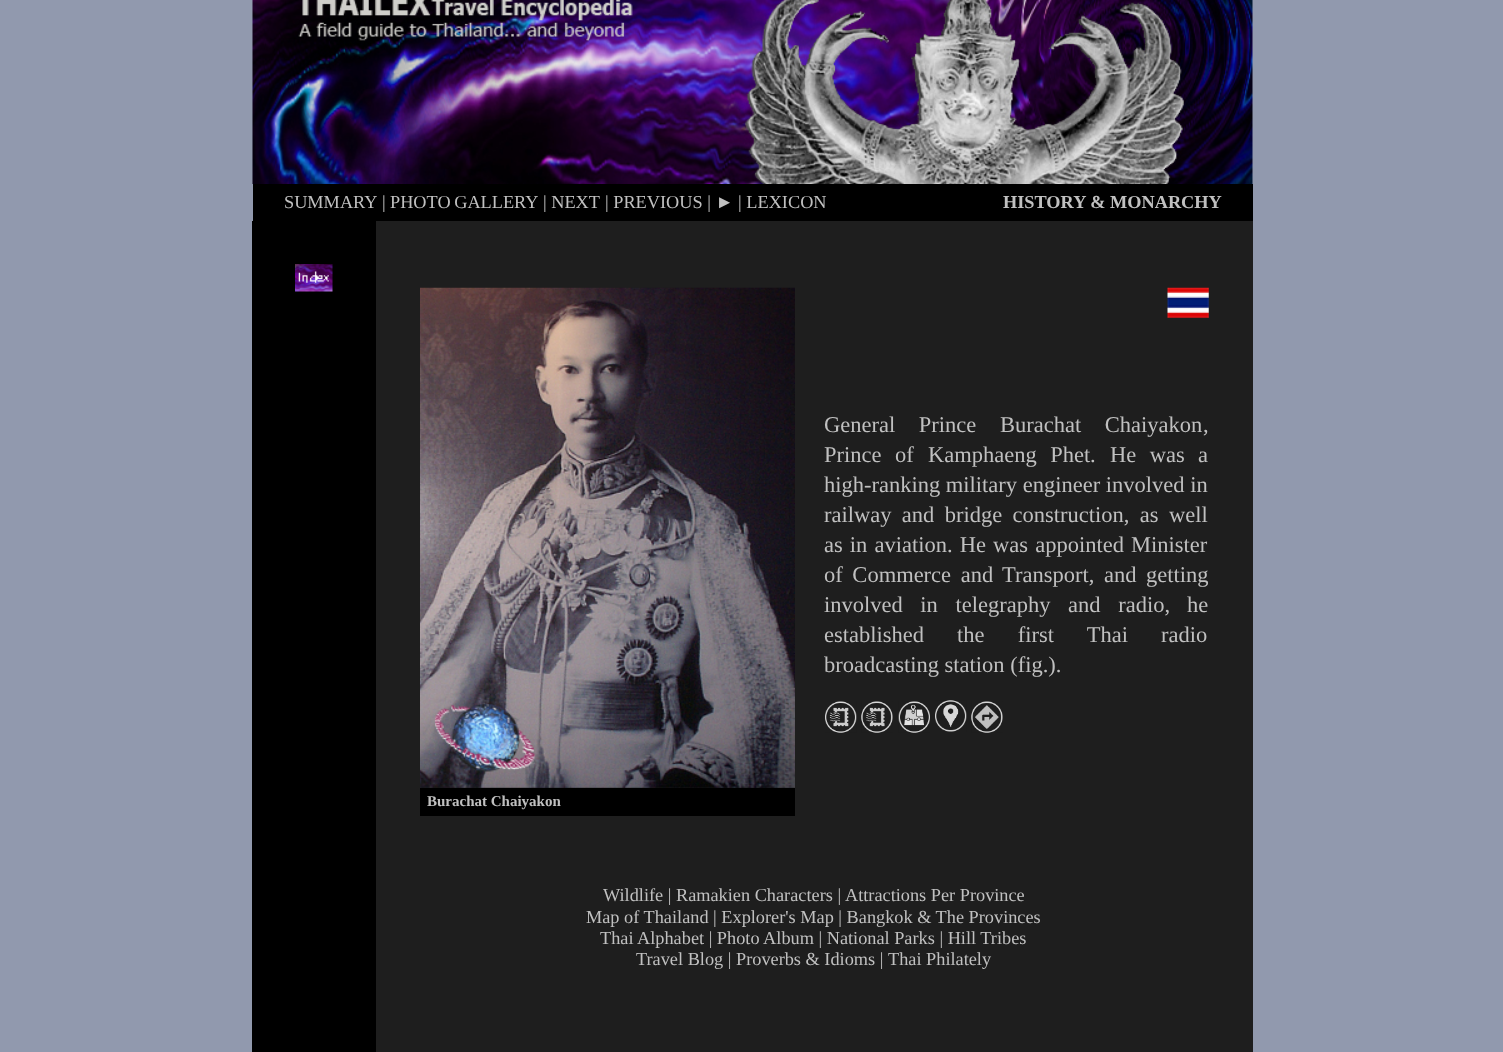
<!DOCTYPE html>
<meta charset="utf-8">
<style>body { margin: 0 } canvas { display: block }</style>
<canvas id="canvas" width="1503" height="1052"></canvas>
<script type="module">
  const canvas = document.getElementById("canvas");
  const g = canvas.getContext("2d");
  g.miterLimit = 4;
  g.fontKerning = "normal";
  function drawText(s, x, y, [font, color]) {
    g.font = font;
    g.fillStyle = color;
    g.fillText(s, x, y);
  }
  function fillBox(x, y, w, h, color) {
    g.fillStyle = color;
    g.fillRect(x, y, w, h);
  }
  async function drawPicture(src, x, y, w, h) {
    const img = new Image();
    img.src = src;
    await img.decode();
    g.drawImage(img, x, y, w, h);
  }

  const s1 = ["18.3px Liberation Serif", "#C0C0C0"];
  const s2 = ["bold 18.3px Liberation Serif", "#C0C0C0"];
  const s3 = ["22.5px Liberation Serif", "#C0C0C0"];
  const s4 = ["bold 15px Liberation Serif", "#C0C0C0"];

  fillBox(0, 0, 1503, 1052, "#9199AE");
  await drawPicture("pic1.png", 252, 0, 1001, 184);
  fillBox(253, 184, 1000, 37, "#000000");
  drawText("SUMMARY", 284, 208, s1);
  drawText("|", 382, 208, s1);
  g.wordSpacing = "-1px";
  drawText("PHOTO GALLERY", 390, 208, s1);
  g.wordSpacing = "0px";
  drawText("| NEXT", 543, 208, s1);
  drawText("| PREVIOUS | ► | LEXICON", 605, 208, s1);
  drawText("HISTORY & MONARCHY", 1003, 208, s2);
  fillBox(252, 221, 124, 831, "#000000");
  await drawPicture("pic2.png", 295, 264, 38, 28);
  fillBox(376, 221, 877, 831, "#1E1E1E");
  g.wordSpacing = "18px";
  drawText("General Prince", 824, 432, s3);
  drawText("Burachat Chaiyakon", 1000, 432, s3);
  g.wordSpacing = "0px";
  drawText(",", 1203, 432, s3);
  g.wordSpacing = "8px";
  drawText("Prince of", 824, 462, s3);
  drawText("Kamphaeng Phet", 928, 462, s3);
  g.wordSpacing = "0px";
  drawText(".", 1090, 462, s3);
  g.wordSpacing = "8px";
  drawText("He was", 1110, 462, s3);
  g.wordSpacing = "0px";
  drawText("a", 1198, 462, s3);
  drawText("high-ranking military engineer involved in", 824, 492, s3);
  g.wordSpacing = "4.75px";
  drawText("railway and bridge construction, as well", 824, 522, s3);
  g.wordSpacing = "1.5px";
  drawText("as in aviation. He was appointed Minister", 824, 552, s3);
  g.wordSpacing = "4px";
  drawText("of Commerce and", 824, 582, s3);
  drawText("Transport, and getting", 1002, 582, s3);
  g.wordSpacing = "12px";
  drawText("involved in telegraphy and radio,", 824, 612, s3);
  g.wordSpacing = "0px";
  drawText("he", 1187, 612, s3);
  g.wordSpacing = "27.5px";
  drawText("established the first Thai radio", 824, 642, s3);
  g.wordSpacing = "0px";
  drawText("broadcasting station (fig.).", 824, 672, s3);
  await drawPicture("pic3.png", 825, 701, 32, 32);
  await drawPicture("pic4.png", 861, 701, 32, 32);
  await drawPicture("pic5.png", 898, 701, 32, 32);
  await drawPicture("pic6.png", 935, 700, 32, 32);
  await drawPicture("pic7.png", 971, 701, 32, 32);
  await drawPicture("pic8.png", 1167, 287, 42, 31);
  await drawPicture("pic9.png", 420, 287, 375, 501);
  fillBox(420, 788, 375, 28, "#000000");
  drawText("Burachat Chaiyakon", 427, 806, s4);
  drawText("Wildlife | Ramakien Characters |", 603, 901, s1);
  drawText("Attractions Per Province", 845, 901, s1);
  drawText("Map of Thailand | Explorer's Map | Bangkok & The Provinces", 586, 923, s1);
  drawText("Thai Alphabet | Photo Album | National Parks | Hill Tribes", 600, 944, s1);
  drawText("Travel Blog | Proverbs & Idioms |", 636, 965, s1);
  drawText("Thai Philately", 888, 965, s1);
</script>
